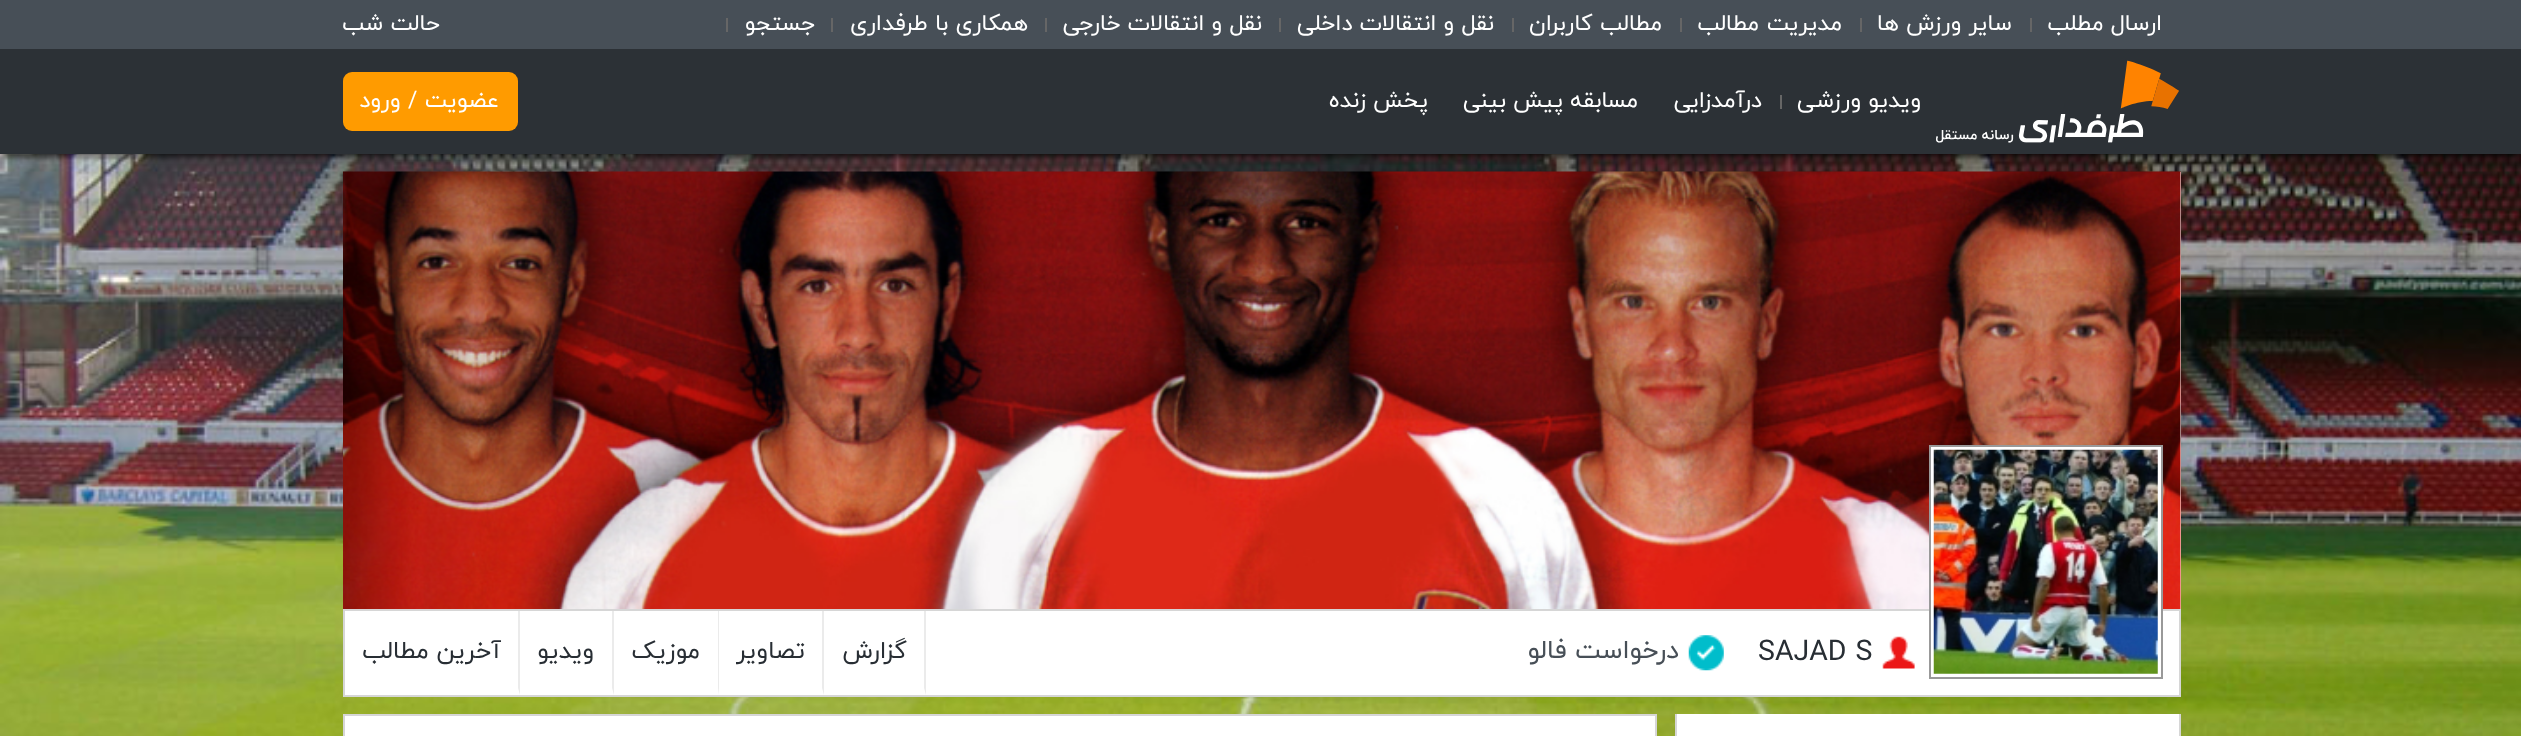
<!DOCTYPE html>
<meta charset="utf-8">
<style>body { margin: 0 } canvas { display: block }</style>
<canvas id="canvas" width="2521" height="736"></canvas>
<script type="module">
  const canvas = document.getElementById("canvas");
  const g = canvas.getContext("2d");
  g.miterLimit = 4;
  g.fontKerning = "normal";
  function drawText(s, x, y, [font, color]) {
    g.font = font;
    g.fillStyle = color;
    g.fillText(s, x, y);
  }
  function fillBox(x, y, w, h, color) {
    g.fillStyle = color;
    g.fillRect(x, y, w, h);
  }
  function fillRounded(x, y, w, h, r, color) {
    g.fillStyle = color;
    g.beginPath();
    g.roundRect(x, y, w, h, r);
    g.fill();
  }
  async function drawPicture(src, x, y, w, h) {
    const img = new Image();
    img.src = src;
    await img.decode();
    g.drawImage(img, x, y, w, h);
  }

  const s1 = ["22.75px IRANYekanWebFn", "#FFFFFF"];
  const s2 = ["28.5px IRANYekanWebFn", "#282E34"];
  const s3 = ["26.25px IRANYekanWebFn", "#474F57"];
  const s4 = ["24.5px IRANYekanWebFn", "#282E34"];

  fillBox(0, 0, 2521, 736, "#FFFFFF");
  await drawPicture("pic1.png", 0, 154, 2521, 582);
  fillBox(0, 0, 2521, 49, "#474F57");
  g.direction = "rtl";
  drawText("ارسال مطلب", 2162, 30, s1);
  fillBox(2030, 18, 2, 14, "#666666");
  drawText("سایر ورزش ها", 2012, 30, s1);
  fillBox(1860, 18, 2, 14, "#666666");
  drawText("مدیریت مطالب", 1842, 30, s1);
  fillBox(1680, 18, 2, 14, "#666666");
  drawText("مطالب کاربران", 1662, 30, s1);
  fillBox(1512, 18, 2, 14, "#666666");
  drawText("نقل و انتقالات داخلی", 1494, 30, s1);
  fillBox(1279, 18, 2, 14, "#666666");
  drawText("نقل و انتقالات خارجی", 1262, 30, s1);
  fillBox(1045, 18, 2, 14, "#666666");
  drawText("همکاری با طرفداری", 1028, 30, s1);
  fillBox(831, 18, 2, 14, "#666666");
  drawText("جستجو", 815, 30, s1);
  fillBox(726, 18, 2, 14, "#666666");
  drawText("حالت شب", 440, 30, s1);
  g.fillStyle = "rgba(0, 0, 0, 0.8)";
  g.filter = "blur(3.5px)";
  g.beginPath();
  g.rect(4, 58, 2514, 98);
  g.fill();
  g.filter = "none";
  fillBox(0, 49, 2521, 105, "#2C3136");
  await drawPicture("pic2.png", 1936, 60, 243, 83);
  drawText("ویدیو ورزشی", 1921, 107, s1);
  fillBox(1780, 95, 2, 14, "#666666");
  drawText("درآمدزایی", 1762, 107, s1);
  drawText("مسابقه پیش بینی", 1638, 107, s1);
  drawText("پخش زنده", 1428, 107, s1);
  fillRounded(343, 72, 175, 59, 9, "#FF9B00");
  drawText("عضویت / ورود", 499, 107, s1);
  fillBox(345, 172, 1836, 523, "#FFFFFF");
  await drawPicture("pic3.png", 343, 171, 1838, 438);
  g.strokeStyle = "#D6D6D6";
  g.lineWidth = 2;
  g.strokeRect(344, 610, 1836, 86);
  fillBox(1931, 447, 230, 164, "#FFFFFF");
  g.strokeStyle = "#999999";
  g.strokeRect(1930, 446, 232, 232);
  await drawPicture("pic4.png", 1933, 449, 225, 225);
  await drawPicture("pic5.png", 1882, 636, 33, 33);
  g.direction = "ltr";
  drawText("SAJAD S", 1758, 660, s2);
  await drawPicture("pic6.png", 1688, 635, 36, 36);
  g.direction = "rtl";
  drawText("درخواست فالو", 1679, 658, s3);
  g.fillStyle = "#EBEBEB";
  g.beginPath();
  g.moveTo(926, 611);
  g.lineTo(926, 695);
  g.lineTo(924, 688);
  g.lineTo(924, 611);
  g.closePath();
  g.fill();
  drawText("گزارش", 907, 658, s4);
  g.fillStyle = "#EBEBEB";
  g.beginPath();
  g.moveTo(824, 611);
  g.lineTo(824, 695);
  g.lineTo(822, 688);
  g.lineTo(822, 611);
  g.closePath();
  g.fill();
  drawText("تصاویر", 805, 658, s4);
  g.fillStyle = "#EBEBEB";
  g.beginPath();
  g.moveTo(719, 611);
  g.lineTo(719, 695);
  g.lineTo(718, 688);
  g.lineTo(718, 611);
  g.closePath();
  g.fill();
  drawText("موزیک", 700, 658, s4);
  g.fillStyle = "#EBEBEB";
  g.beginPath();
  g.moveTo(614, 611);
  g.lineTo(614, 695);
  g.lineTo(612, 688);
  g.lineTo(612, 611);
  g.closePath();
  g.fill();
  drawText("ویدیو", 594, 658, s4);
  g.fillStyle = "#EBEBEB";
  g.beginPath();
  g.moveTo(520, 611);
  g.lineTo(520, 695);
  g.lineTo(518, 688);
  g.lineTo(518, 611);
  g.closePath();
  g.fill();
  drawText("آخرین مطالب", 501, 658, s4);
  fillBox(1677, 714, 502, 22, "#FFFFFF");
  fillBox(2179, 714, 2, 22, "#D6D6D6");
  fillBox(1675, 714, 2, 22, "#D6D6D6");
  g.fillStyle = "#FFFFFF";
  g.beginPath();
  g.rect(344, 715, 1312, 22);
  g.fill();
  g.strokeStyle = "#D6D6D6";
  g.stroke();
</script>
